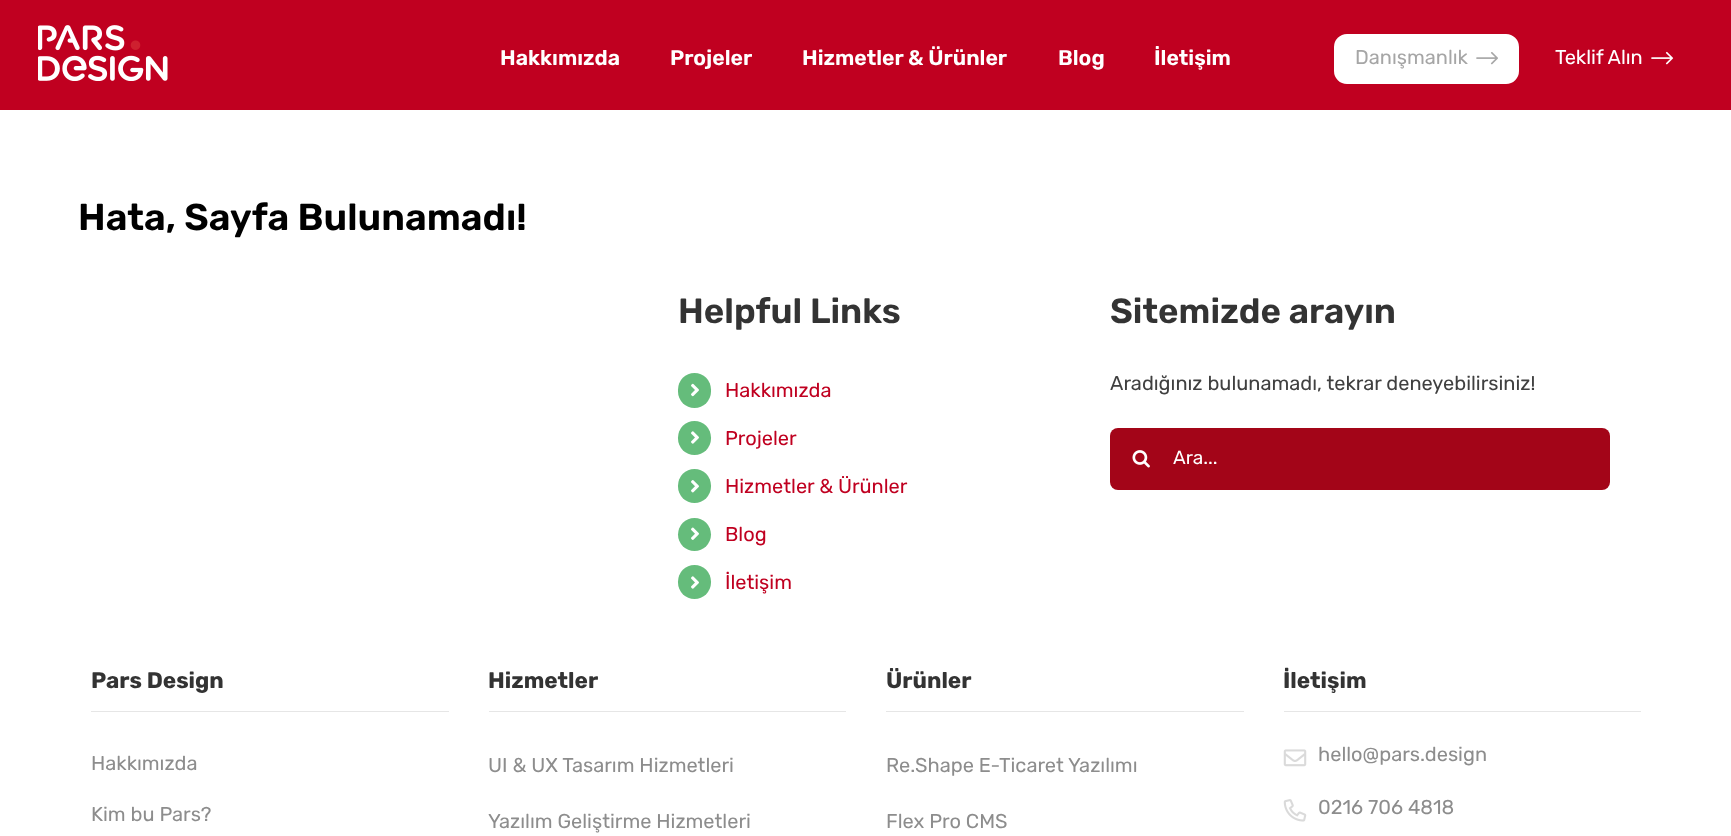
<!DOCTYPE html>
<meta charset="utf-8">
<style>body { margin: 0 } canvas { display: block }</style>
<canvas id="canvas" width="1731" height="836"></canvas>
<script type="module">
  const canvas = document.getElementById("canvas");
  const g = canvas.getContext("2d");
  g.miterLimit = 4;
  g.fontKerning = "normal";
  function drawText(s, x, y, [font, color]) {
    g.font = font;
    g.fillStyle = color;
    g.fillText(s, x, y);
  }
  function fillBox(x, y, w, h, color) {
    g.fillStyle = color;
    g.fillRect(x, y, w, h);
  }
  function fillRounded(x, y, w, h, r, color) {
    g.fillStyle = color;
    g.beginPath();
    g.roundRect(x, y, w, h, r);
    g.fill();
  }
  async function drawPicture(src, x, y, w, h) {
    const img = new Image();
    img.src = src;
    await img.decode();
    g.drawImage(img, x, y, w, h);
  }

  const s1 = ["600 21.25px Rubik", "#FFFFFF"];
  const s2 = ["20px Rubik", "#A6A6A6"];
  const s3 = ["20px Rubik", "#FFFFFF"];
  const s4 = ["600 37.5px Rubik", "#000000"];
  const s5 = ["600 35px Rubik", "#333333"];
  const s6 = ["20px Rubik", "#C00020"];
  const s7 = ["20px Rubik", "#404040"];
  const s8 = ["19px Rubik", "#FFFFFF"];
  const s9 = ["bold 22.5px Rubik", "#333333"];
  const s10 = ["20px Rubik", "#8D8D8D"];

  fillBox(0, 0, 1731, 836, "#FFFFFF");
  fillBox(0, 0, 1731, 110, "#C00020");
  await drawPicture("pic1.png", 38, 25, 130, 56);
  drawText("Hakkımızda", 500, 65, s1);
  drawText("Projeler", 670, 65, s1);
  drawText("Hizmetler & Ürünler", 802, 65, s1);
  drawText("Blog", 1058, 65, s1);
  drawText("İletişim", 1154, 65, s1);
  g.beginPath();
  g.roundRect(1335.5, 35.5, 182, 47, 11.5);
  g.fill();
  g.strokeStyle = "#FFFFFF";
  g.lineWidth = 3;
  g.stroke();
  drawText("Danışmanlık", 1355, 64, s2);
  await drawPicture("pic2.png", 1476, 52, 22, 13);
  drawText("Teklif Alın", 1555, 64, s3);
  await drawPicture("pic3.png", 1651, 51, 23, 14);
  drawText("Hata, Sayfa Bulunamadı!", 78, 230, s4);
  drawText("Helpful Links", 678, 323, s5);
  fillRounded(678, 373, 33, 35, 16.5, "#65BC7B");
  await drawPicture("pic4.png", 691, 383, 8, 14);
  drawText("Hakkımızda", 725, 397, s6);
  fillRounded(678, 421, 33, 34, 16.5, "#65BC7B");
  await drawPicture("pic5.png", 691, 431, 8, 13);
  drawText("Projeler", 725, 445, s6);
  fillRounded(678, 469, 33, 34, 16.5, "#65BC7B");
  await drawPicture("pic6.png", 691, 480, 8, 13);
  drawText("Hizmetler & Ürünler", 725, 493, s6);
  g.fillStyle = "#65BC7B";
  g.beginPath();
  g.arc(694.5, 534.5, 16.5, 0, Math.PI * 2);
  g.fill();
  await drawPicture("pic7.png", 691, 527, 8, 13);
  drawText("Blog", 725, 541, s6);
  fillRounded(678, 565, 33, 34, 16.5, "#65BC7B");
  await drawPicture("pic5.png", 691, 576, 8, 13);
  drawText("İletişim", 725, 589, s6);
  drawText("Sitemizde arayın", 1110, 323, s5);
  drawText("Aradığınız bulunamadı, tekrar deneyebilirsiniz!", 1110, 390, s7);
  fillRounded(1110, 428, 500, 62, 8, "#A30518");
  await drawPicture("pic8.png", 1132, 450, 18, 18);
  drawText("Ara...", 1173, 464, s8);
  fillBox(91, 711, 358, 1, "#E6E6E6");
  drawText("Pars Design", 91, 688, s9);
  drawText("Hakkımızda", 91, 770, s10);
  drawText("Kim bu Pars?", 91, 821, s10);
  fillBox(489, 711, 357, 1, "#E6E6E6");
  drawText("Hizmetler", 488, 688, s9);
  drawText("UI & UX Tasarım Hizmetleri", 488, 772, s10);
  drawText("Yazılım Geliştirme Hizmetleri", 488, 828, s10);
  fillBox(886, 711, 358, 1, "#E6E6E6");
  drawText("Ürünler", 886, 688, s9);
  drawText("Re.Shape E-Ticaret Yazılımı", 886, 772, s10);
  drawText("Flex Pro CMS", 886, 828, s10);
  fillBox(1284, 711, 357, 1, "#E6E6E6");
  drawText("İletişim", 1283, 688, s9);
  await drawPicture("pic9.png", 1283, 749, 24, 18);
  drawText("hello@pars.design", 1318, 761, s10);
  await drawPicture("pic10.png", 1283, 799, 24, 23);
  drawText("0216 706 4818", 1318, 814, s10);
</script>
